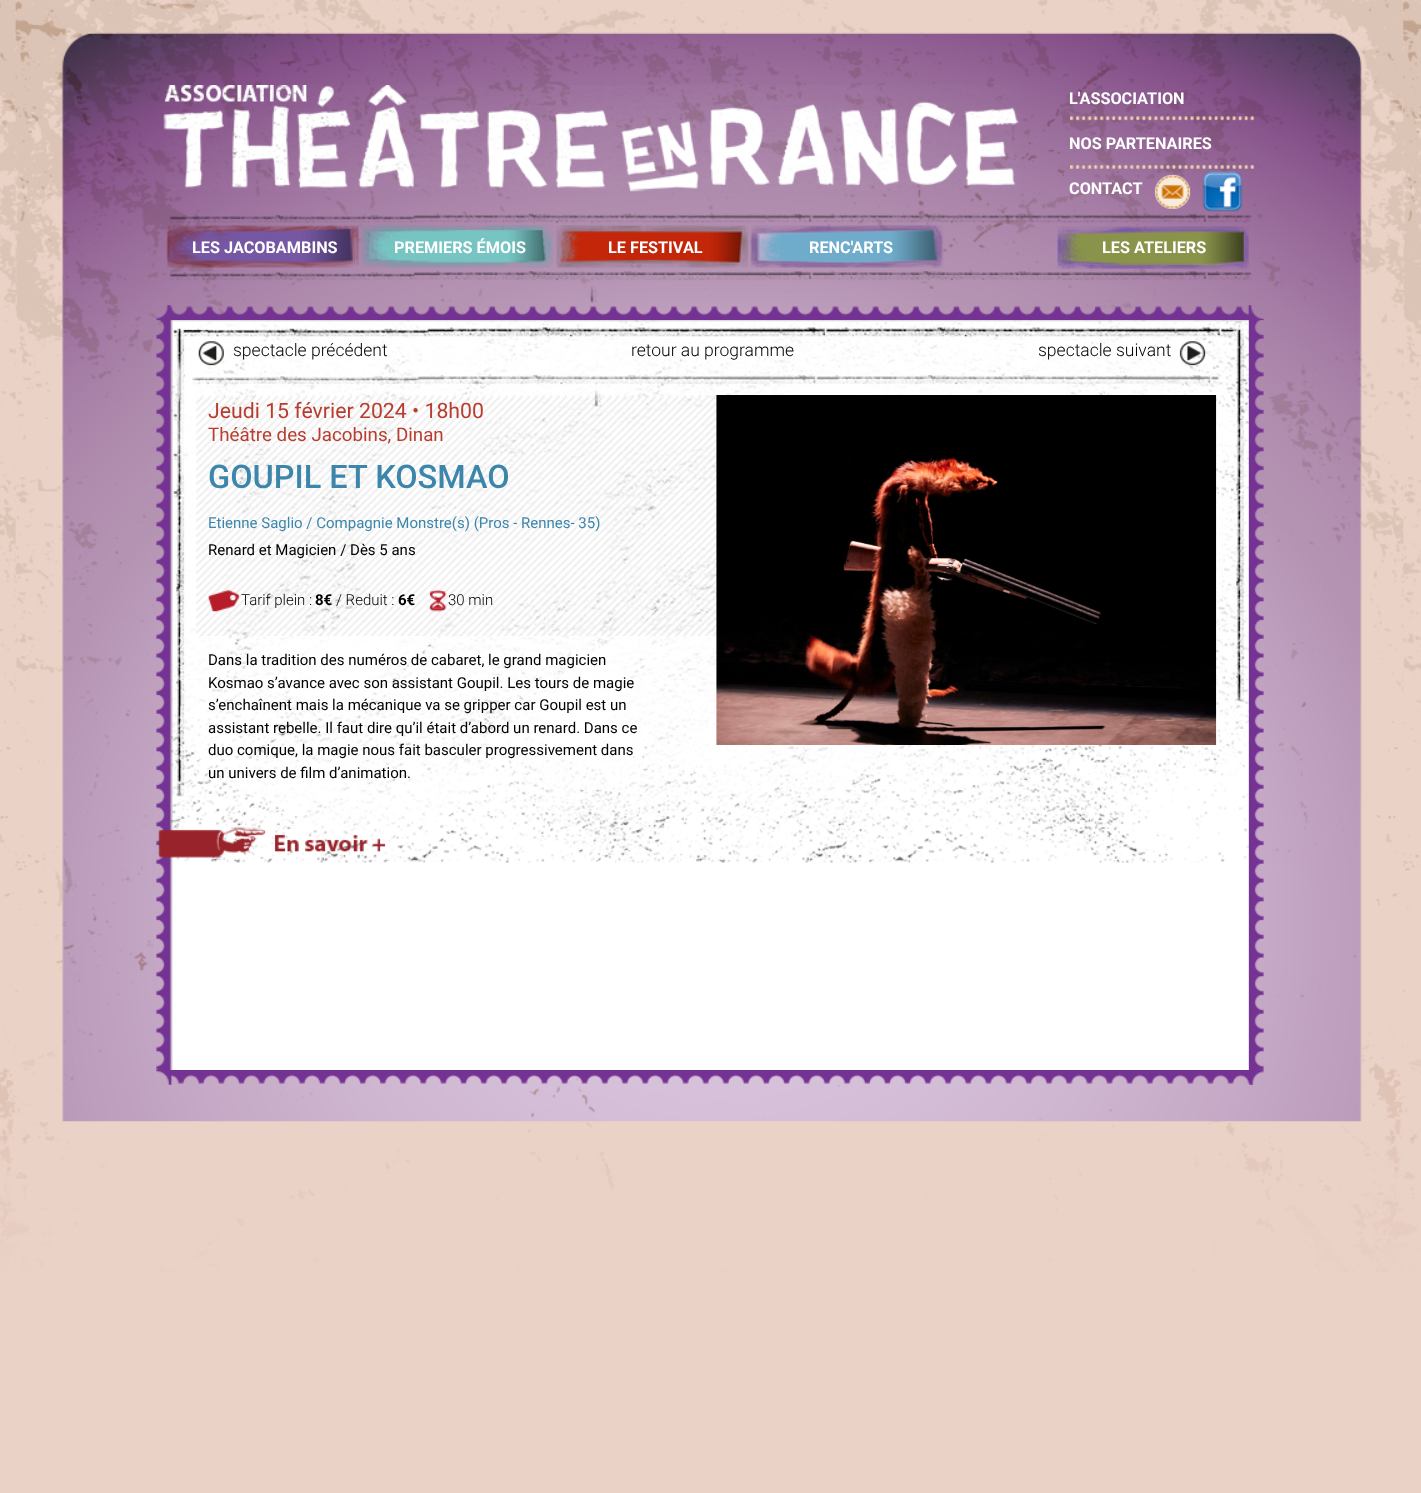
<!DOCTYPE html>
<meta charset="utf-8">
<style>body { margin: 0 } canvas { display: block }</style>
<canvas id="canvas" width="1421" height="1493"></canvas>
<script type="module">
  const canvas = document.getElementById("canvas");
  const g = canvas.getContext("2d");
  g.miterLimit = 4;
  g.fontKerning = "normal";
  function drawText(s, x, y, [font, color]) {
    g.font = font;
    g.fillStyle = color;
    g.fillText(s, x, y);
  }
  function fillBox(x, y, w, h, color) {
    g.fillStyle = color;
    g.fillRect(x, y, w, h);
  }
  async function drawPicture(src, x, y, w, h) {
    const img = new Image();
    img.src = src;
    await img.decode();
    g.drawImage(img, x, y, w, h);
  }

  const s1 = ["bold 16.25px Roboto", "#FFFFFF"];
  const s2 = ["300 17.5px Roboto", "#000000"];
  const s3 = ["21.25px Roboto", "#B83D30"];
  const s4 = ["18.75px Roboto", "#B83D30"];
  const s5 = ["500 32.5px Roboto", "#3C86AB"];
  const s6 = ["15px Roboto", "#3C86AB"];
  const s7 = ["15px Roboto", "#000000"];
  const s8 = ["300 15px Roboto", "#000000"];
  const s9 = ["bold 15px Roboto", "#000000"];

  fillBox(0, 0, 1421, 1493, "#EBD2C7");
  await drawPicture("pic1.png", 0, 0, 1421, 1272);
  await drawPicture("pic2.png", 62, 32, 1300, 1090);
  await drawPicture("pic3.png", 163, 85, 856, 107);
  await drawPicture("pic4.png", 1070, 116, 184, 53);
  drawText("L'ASSOCIATION", 1069, 104, s1);
  drawText("NOS PARTENAIRES", 1069, 149, s1);
  drawText("CONTACT", 1069, 194, s1);
  await drawPicture("pic5.png", 1154, 174, 37, 35);
  await drawPicture("pic6.png", 1202, 171, 41, 41);
  await drawPicture("pic7.png", 166, 225, 1083, 44);
  drawText("LES JACOBAMBINS", 192, 253, s1);
  drawText("PREMIERS ÉMOIS", 394, 253, s1);
  drawText("LE FESTIVAL", 608, 253, s1);
  drawText("RENC'ARTS", 809, 253, s1);
  drawText("LES ATELIERS", 1102, 253, s1);
  await drawPicture("pic8.png", 156, 305, 1108, 15);
  await drawPicture("pic9.png", 156, 320, 1108, 750);
  await drawPicture("pic10.png", 171, 320, 1078, 750);
  await drawPicture("pic11.png", 198, 341, 26, 25);
  drawText("spectacle précédent", 233, 356, s2);
  drawText("retour au programme", 631, 356, s2);
  drawText("spectacle suivant", 1038, 356, s2);
  await drawPicture("pic12.png", 1179, 341, 27, 25);
  await drawPicture("pic17.png", 716, 395, 501, 350);
  await drawPicture("pic13.png", 196, 395, 521, 241);
  drawText("Jeudi 15 février 2024 • 18h00", 208, 418, s3);
  drawText("Théâtre des Jacobins, Dinan", 208, 441, s4);
  drawText("GOUPIL ET KOSMAO", 208, 488, s5);
  drawText("Etienne Saglio / Compagnie Monstre(s) (Pros - Rennes- 35)", 208, 528, s6);
  drawText("Renard et Magicien / Dès 5 ans", 208, 555, s7);
  await drawPicture("pic14.png", 208, 589, 32, 23);
  drawText("Tarif plein :", 241, 605, s8);
  drawText("8€", 315, 605, s9);
  drawText("/ Reduit :", 336, 605, s8);
  drawText("6€", 398, 605, s9);
  await drawPicture("pic15.png", 429, 589, 18, 23);
  drawText("30 min", 448, 605, s8);
  drawText("Dans la tradition des numéros de cabaret, le grand magicien", 208, 665, s7);
  drawText("Kosmao s’avance avec son assistant Goupil. Les tours de magie", 208, 688, s7);
  drawText("s’enchaînent mais la mécanique va se gripper car Goupil est un", 208, 710, s7);
  drawText("assistant rebelle. Il faut dire qu’il était d’abord un renard. Dans ce", 208, 733, s7);
  drawText("duo comique, la magie nous fait basculer progressivement dans", 208, 755, s7);
  drawText("un univers de film d’animation.", 208, 778, s7);
  await drawPicture("pic16.png", 158, 827, 228, 31);
  await drawPicture("pic18.png", 156, 1070, 1108, 15);
</script>
